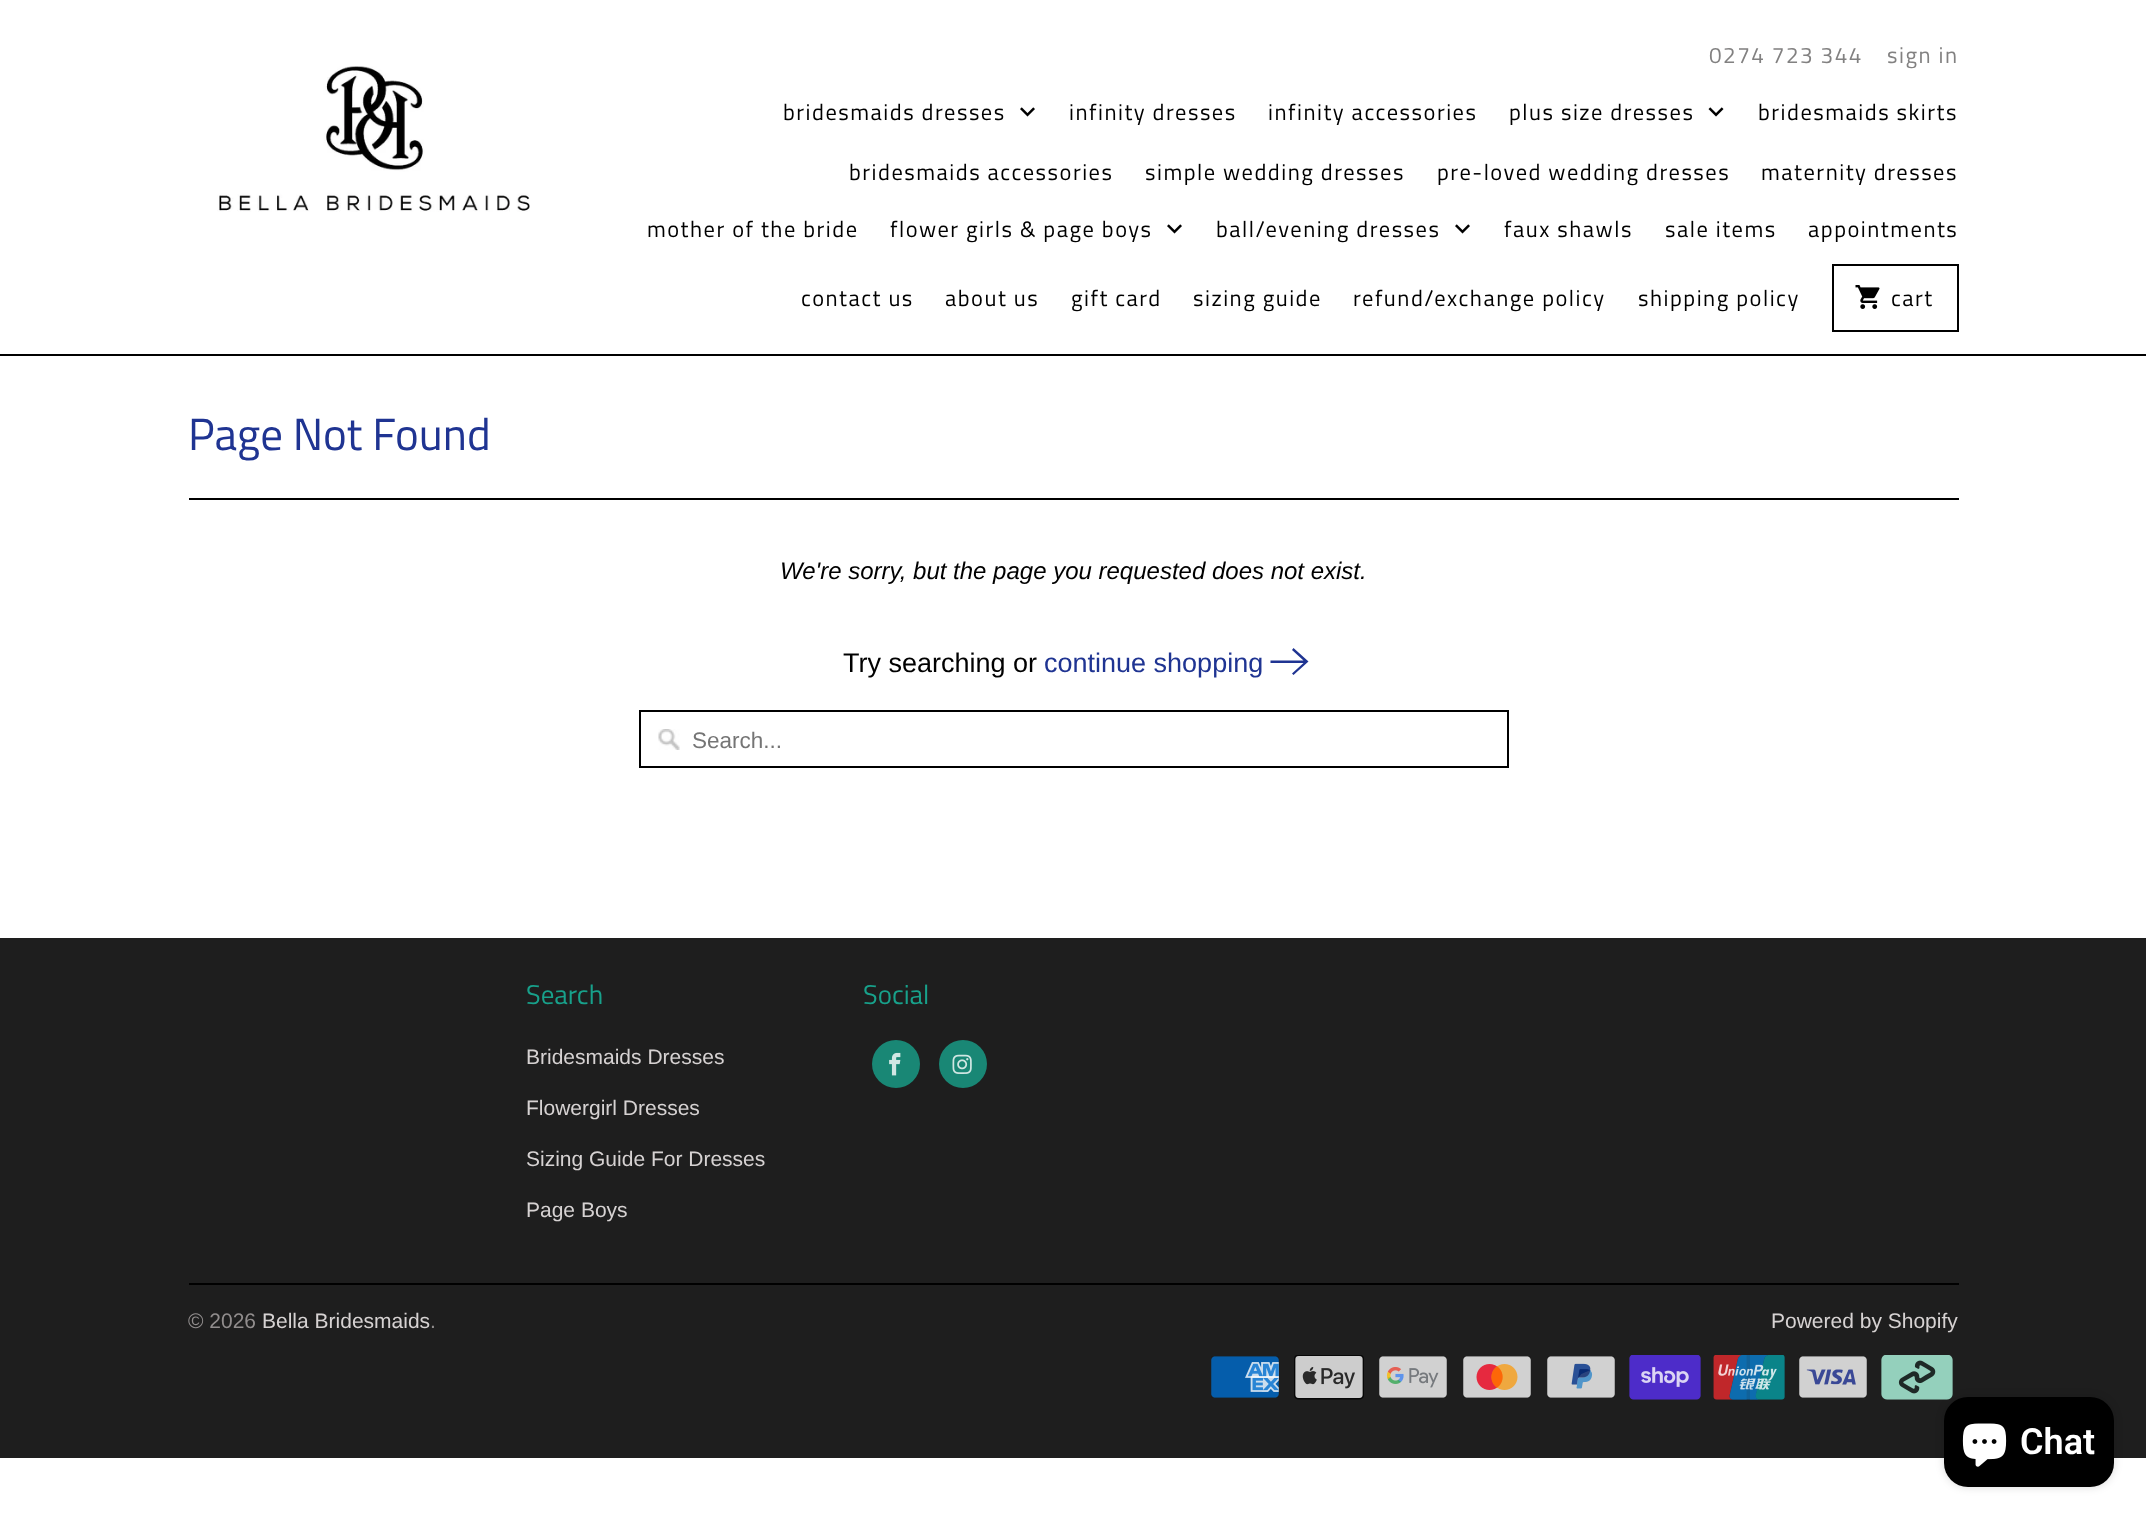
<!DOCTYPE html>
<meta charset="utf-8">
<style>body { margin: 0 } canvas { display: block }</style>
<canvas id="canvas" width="2146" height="1517"></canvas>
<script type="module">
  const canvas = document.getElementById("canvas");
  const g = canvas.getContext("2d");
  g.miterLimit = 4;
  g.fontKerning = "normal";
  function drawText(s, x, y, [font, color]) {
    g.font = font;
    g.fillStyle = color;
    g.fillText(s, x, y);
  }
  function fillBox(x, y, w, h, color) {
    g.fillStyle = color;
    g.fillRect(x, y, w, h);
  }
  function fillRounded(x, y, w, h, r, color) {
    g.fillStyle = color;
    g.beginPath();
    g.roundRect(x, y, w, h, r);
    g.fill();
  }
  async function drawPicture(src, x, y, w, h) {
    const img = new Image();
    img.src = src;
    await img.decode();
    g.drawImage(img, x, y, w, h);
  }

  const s1 = ["22.5px Titillium Web", "#828181"];
  const s2 = ["22.5px Titillium Web", "#000000"];
  const s3 = ["45px Titillium Web", "#1F3492"];
  const s4 = ["italic 24px Arimo", "#000000"];
  const s5 = ["27px Arimo", "#000000"];
  const s6 = ["27px Arimo", "#1F3492"];
  const s7 = ["22.5px Liberation Sans", "#757575"];
  const s8 = ["27px Titillium Web", "#18A18B"];
  const s9 = ["21px Arimo", "#D6D2D2"];
  const s10 = ["21px Arimo", "#918D8D"];
  const s11 = ["600 36px Roboto", "#FFFFFF"];

  fillBox(0, 0, 2146, 1517, "#FFFFFF");
  fillBox(0, 354, 2146, 2, "#000000");
  await drawPicture("pic1.png", 217, 66, 313, 146);
  g.letterSpacing = "1.5px";
  drawText("0274 723 344", 1709, 63, s1);
  drawText("sign in", 1887, 63, s1);
  drawText("bridesmaids dresses", 783, 120, s2);
  await drawPicture("pic2.png", 1020, 107, 15, 10);
  drawText("infinity dresses", 1069, 120, s2);
  drawText("infinity accessories", 1268, 120, s2);
  drawText("plus size dresses", 1509, 120, s2);
  await drawPicture("pic3.png", 1708, 107, 16, 10);
  drawText("bridesmaids skirts", 1758, 120, s2);
  drawText("bridesmaids accessories", 849, 180, s2);
  drawText("simple wedding dresses", 1145, 180, s2);
  drawText("pre-loved wedding dresses", 1437, 180, s2);
  drawText("maternity dresses", 1761, 180, s2);
  drawText("mother of the bride", 647, 237, s2);
  drawText("flower girls & page boys", 890, 237, s2);
  await drawPicture("pic2.png", 1167, 224, 15, 10);
  drawText("ball/evening dresses", 1216, 237, s2);
  await drawPicture("pic2.png", 1455, 224, 15, 10);
  drawText("faux shawls", 1504, 237, s2);
  drawText("sale items", 1665, 237, s2);
  drawText("appointments", 1808, 237, s2);
  drawText("contact us", 801, 306, s2);
  drawText("about us", 945, 306, s2);
  drawText("gift card", 1071, 306, s2);
  drawText("sizing guide", 1193, 306, s2);
  drawText("refund/exchange policy", 1353, 306, s2);
  drawText("shipping policy", 1638, 306, s2);
  g.strokeStyle = "#000000";
  g.lineWidth = 2;
  g.strokeRect(1833, 265, 125, 66);
  await drawPicture("pic4.png", 1855, 285, 25, 24);
  drawText("cart", 1891, 306, s2);
  fillBox(189, 498, 1770, 2, "#000000");
  g.letterSpacing = "0px";
  drawText("Page Not Found", 188, 450, s3);
  drawText("We're sorry, but the page you requested does not exist.", 780, 579, s4);
  drawText("Try searching or", 843, 672, s5);
  drawText("continue shopping", 1044, 672, s6);
  g.beginPath();
  g.moveTo(1308.5, 661.5);
  g.lineTo(1293.5, 675);
  g.lineTo(1292, 673.5);
  g.lineTo(1303.5, 663);
  g.lineTo(1270.5, 663);
  g.lineTo(1270.5, 660.5);
  g.lineTo(1303.5, 660.5);
  g.lineTo(1292, 650);
  g.lineTo(1293.5, 648);
  g.closePath();
  g.fill();
  await drawPicture("pic5.png", 658, 729, 22, 21);
  g.strokeRect(640, 711, 868, 56);
  drawText("Search...", 692, 748, s7);
  fillBox(0, 938, 2146, 520, "#1E1E1E");
  drawText("Search", 526, 1004, s8);
  drawText("Bridesmaids Dresses", 526, 1064, s9);
  drawText("Flowergirl Dresses", 526, 1115, s9);
  drawText("Sizing Guide For Dresses", 526, 1166, s9);
  drawText("Page Boys", 526, 1217, s9);
  drawText("Social", 863, 1004, s8);
  g.fillStyle = "#198775";
  g.beginPath();
  g.arc(896, 1064, 24, 0, Math.PI * 2);
  g.fill();
  await drawPicture("pic6.png", 889, 1052, 12, 24);
  g.beginPath();
  g.arc(963, 1064, 24, 0, Math.PI * 2);
  g.fill();
  await drawPicture("pic7.png", 952, 1054, 20, 20);
  fillBox(189, 1283, 1770, 2, "#000000");
  drawText("© 2026", 188, 1328, s10);
  drawText("Bella Bridesmaids", 262, 1328, s9);
  drawText(".", 430, 1328, s10);
  drawText("Powered by Shopify", 1771, 1328, s9);
  await drawPicture("pic8.png", 1211, 1356, 68, 42);
  await drawPicture("pic9.png", 1294, 1355, 70, 45);
  await drawPicture("pic10.png", 1379, 1356, 68, 42);
  await drawPicture("pic11.png", 1463, 1356, 68, 42);
  await drawPicture("pic12.png", 1547, 1356, 68, 42);
  await drawPicture("pic13.png", 1629, 1355, 72, 45);
  await drawPicture("pic14.png", 1713, 1355, 72, 45);
  await drawPicture("pic15.png", 1799, 1356, 68, 42);
  await drawPicture("pic16.png", 1881, 1355, 72, 45);
  g.fillStyle = "rgba(0, 0, 0, 0.15)";
  g.filter = "blur(4px)";
  g.beginPath();
  g.roundRect(1944, 1397, 170, 90, 24);
  g.fill();
  g.filter = "none";
  fillRounded(1944, 1397, 170, 90, 24, "#000000");
  await drawPicture("pic17.png", 1962, 1423, 45, 44);
  drawText("Chat", 2020, 1454, s11);
</script>
